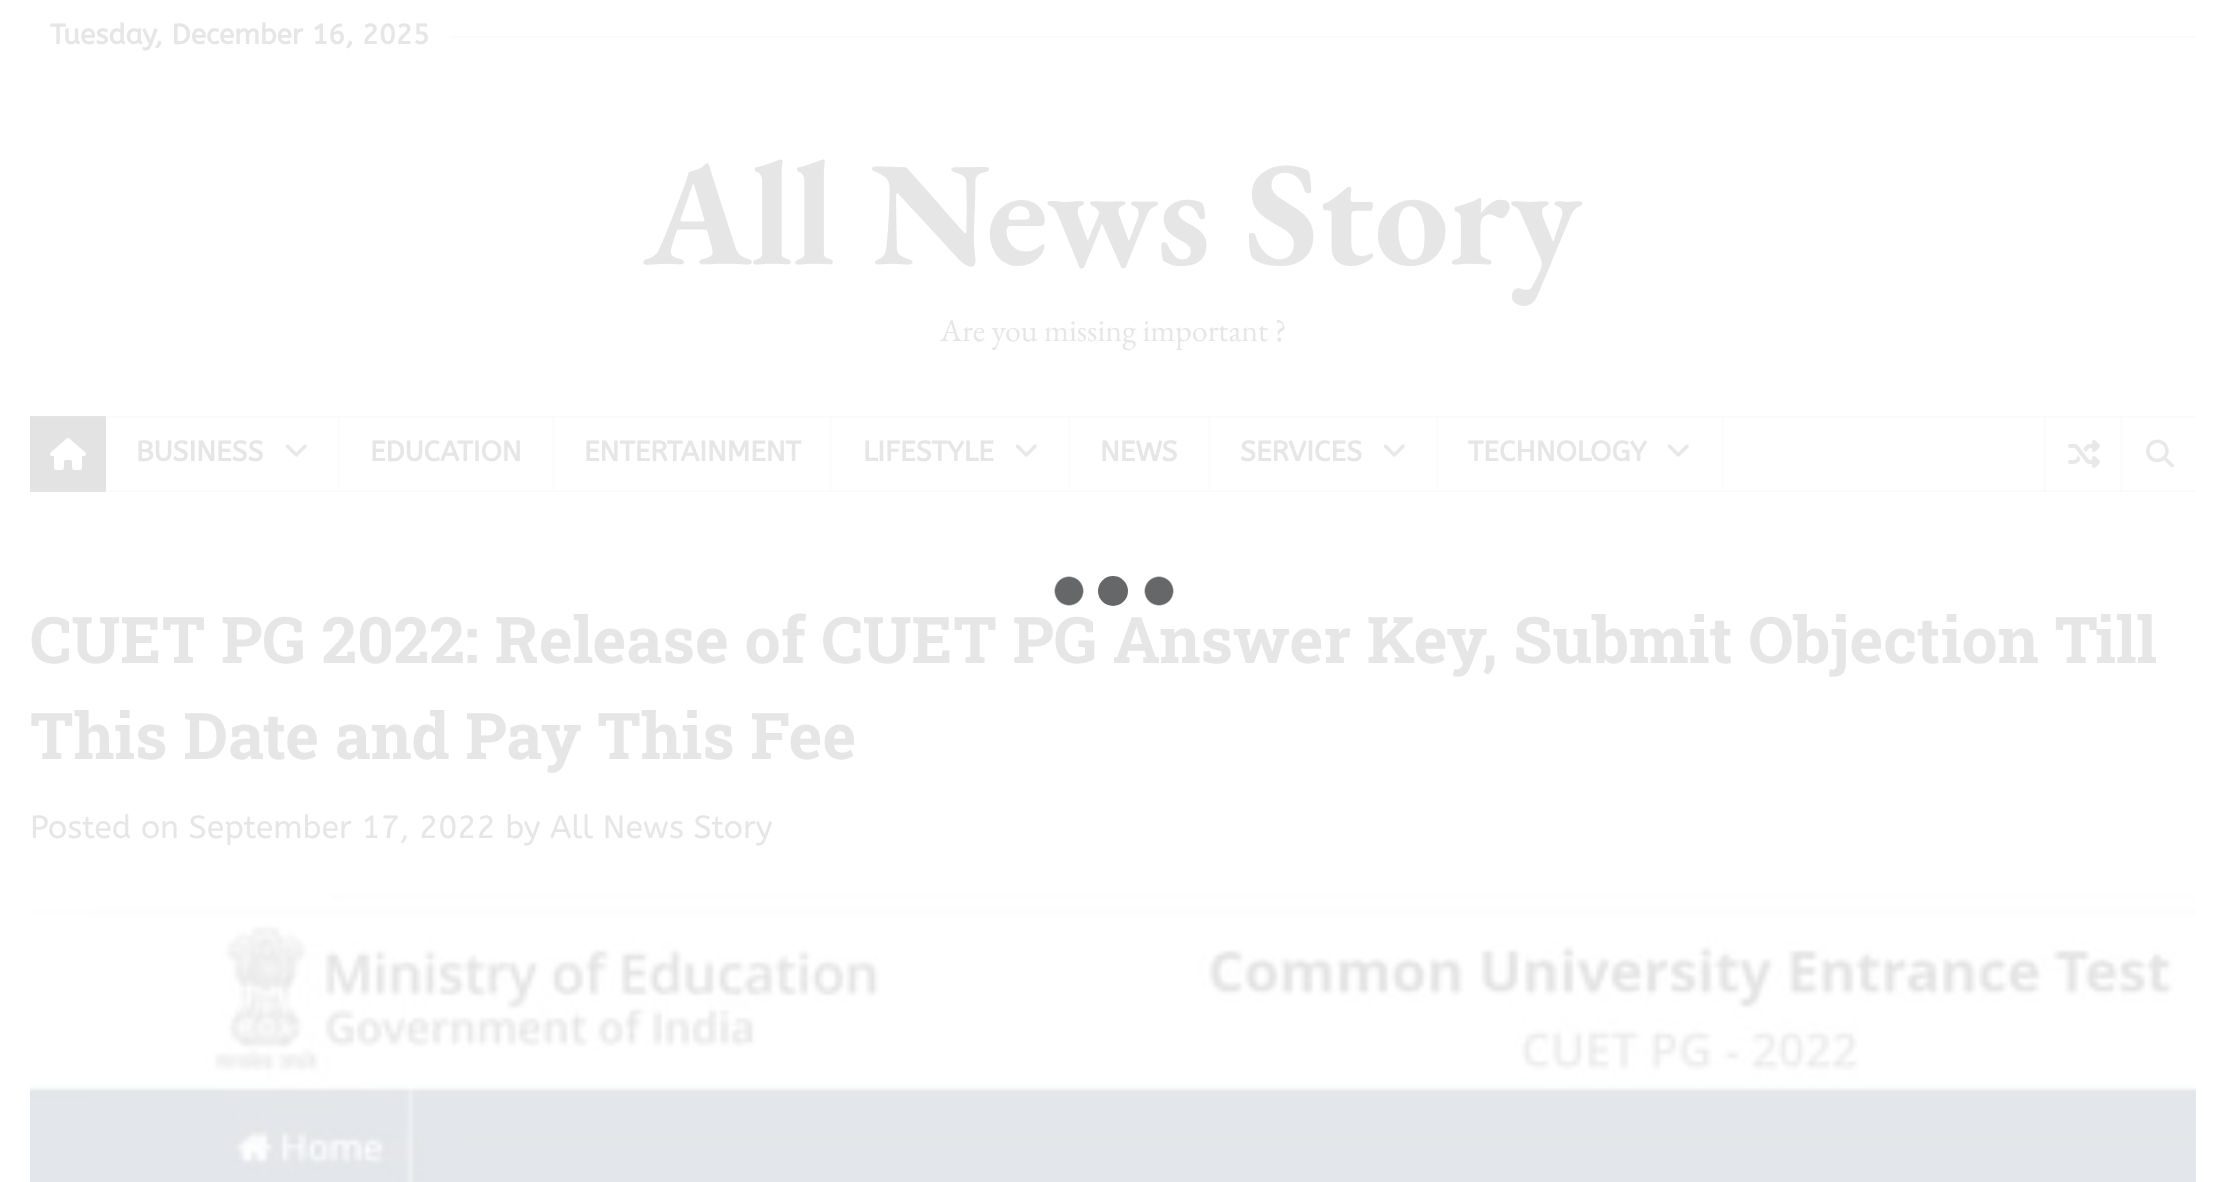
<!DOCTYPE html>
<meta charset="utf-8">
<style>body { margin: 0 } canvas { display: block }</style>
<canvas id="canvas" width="2226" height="1182"></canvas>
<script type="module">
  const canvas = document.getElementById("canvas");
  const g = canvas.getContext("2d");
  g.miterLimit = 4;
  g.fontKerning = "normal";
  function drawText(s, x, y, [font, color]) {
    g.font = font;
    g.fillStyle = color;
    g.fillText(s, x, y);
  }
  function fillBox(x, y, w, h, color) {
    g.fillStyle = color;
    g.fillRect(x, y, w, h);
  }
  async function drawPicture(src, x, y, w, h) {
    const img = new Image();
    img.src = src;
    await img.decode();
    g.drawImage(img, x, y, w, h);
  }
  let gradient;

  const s1 = ["bold 28.1px ABeeZee", "#E6E6E6"];
  const s2 = ["bold 148.25px EB Garamond", "#E6E6E6"];
  const s3 = ["32px EB Garamond", "#E6E6E6"];
  const s4 = ["bold 64.2px Roboto Slab", "#E6E6E6"];
  const s5 = ["32px ABeeZee", "#E6E6E6"];

  fillBox(0, 0, 2226, 1182, "#FFFFFF");
  fillBox(106, 490, 2090, 2, "#FBFBFB");
  fillBox(2120, 416, 2, 76, "#FCFCFC");
  fillBox(2120, 490, 2, 2, "#F8F8F9");
  fillBox(1722, 416, 2, 74, "#FCFCFC");
  fillBox(1436, 416, 2, 74, "#FCFCFC");
  fillBox(1208, 416, 2, 74, "#FCFCFC");
  fillBox(1068, 416, 2, 74, "#FCFCFC");
  fillBox(830, 416, 2, 74, "#FCFCFC");
  fillBox(552, 416, 2, 74, "#FCFCFC");
  fillBox(338, 416, 2, 74, "#FCFCFC");
  fillBox(106, 416, 2090, 2, "#FBFBFB");
  fillBox(2120, 416, 2, 2, "#F8F9F9");
  fillBox(1722, 416, 2, 2, "#F8F9F9");
  fillBox(1436, 416, 2, 2, "#F8F9F9");
  fillBox(1208, 416, 2, 2, "#F8F9F9");
  fillBox(1068, 416, 2, 2, "#F8F9F9");
  fillBox(830, 416, 2, 2, "#F8F9F9");
  fillBox(552, 416, 2, 2, "#F8F9F9");
  fillBox(338, 416, 2, 2, "#F8F9F9");
  drawText("Tuesday, December 16, 2025", 50, 44, s1);
  fillBox(450, 36, 1746, 2, "#FBFBFB");
  drawText("All News Story", 644, 264, s2);
  drawText("Are you missing important ?", 940, 341, s3);
  fillBox(30, 418, 76, 72, "#E3E3E3");
  fillBox(30, 490, 76, 2, "#E4E4E4");
  fillBox(30, 416, 76, 2, "#E4E4E4");
  await drawPicture("pic1.png", 50, 438, 36, 32);
  drawText("BUSINESS", 136, 461, s1);
  await drawPicture("pic2.png", 285, 444, 22, 13);
  drawText("EDUCATION", 370, 461, s1);
  drawText("ENTERTAINMENT", 584, 461, s1);
  drawText("LIFESTYLE", 863, 461, s1);
  await drawPicture("pic2.png", 1015, 444, 22, 13);
  drawText("NEWS", 1100, 461, s1);
  drawText("SERVICES", 1240, 461, s1);
  await drawPicture("pic2.png", 1383, 444, 22, 13);
  drawText("TECHNOLOGY", 1468, 461, s1);
  await drawPicture("pic2.png", 1667, 444, 22, 13);
  fillBox(2044, 416, 2, 76, "#FBFBFB");
  fillBox(2044, 490, 2, 2, "#F8F8F8");
  fillBox(2044, 416, 2, 2, "#F8F8F8");
  await drawPicture("pic3.png", 2068, 440, 32, 28);
  await drawPicture("pic4.png", 2146, 439, 28, 29);
  gradient = g.createRadialGradient(1159, 591, 0, 1159, 591, 15);
  gradient.addColorStop(0.9, "#656768");
  gradient.addColorStop(1, "#FFFFFF");
  g.fillStyle = gradient;
  g.fillRect(1144, 576, 30, 30);
  gradient = g.createRadialGradient(1069, 591, 0, 1069, 591, 15);
  gradient.addColorStop(0.9, "#656768");
  gradient.addColorStop(1, "#FFFFFF");
  g.fillStyle = gradient;
  g.fillRect(1054, 576, 30, 30);
  g.fillStyle = "#656768";
  g.beginPath();
  g.arc(1113, 591, 15, 0, Math.PI * 2);
  g.fill();
  drawText("CUET PG 2022: Release of CUET PG Answer Key, Submit Objection Till", 30, 663, s4);
  drawText("This Date and Pay This Fee", 30, 759, s4);
  drawText("Posted on September 17, 2022 by All News Story", 30, 838, s5);
  await drawPicture("pic5.png", 30, 892, 2166, 290);
</script>
